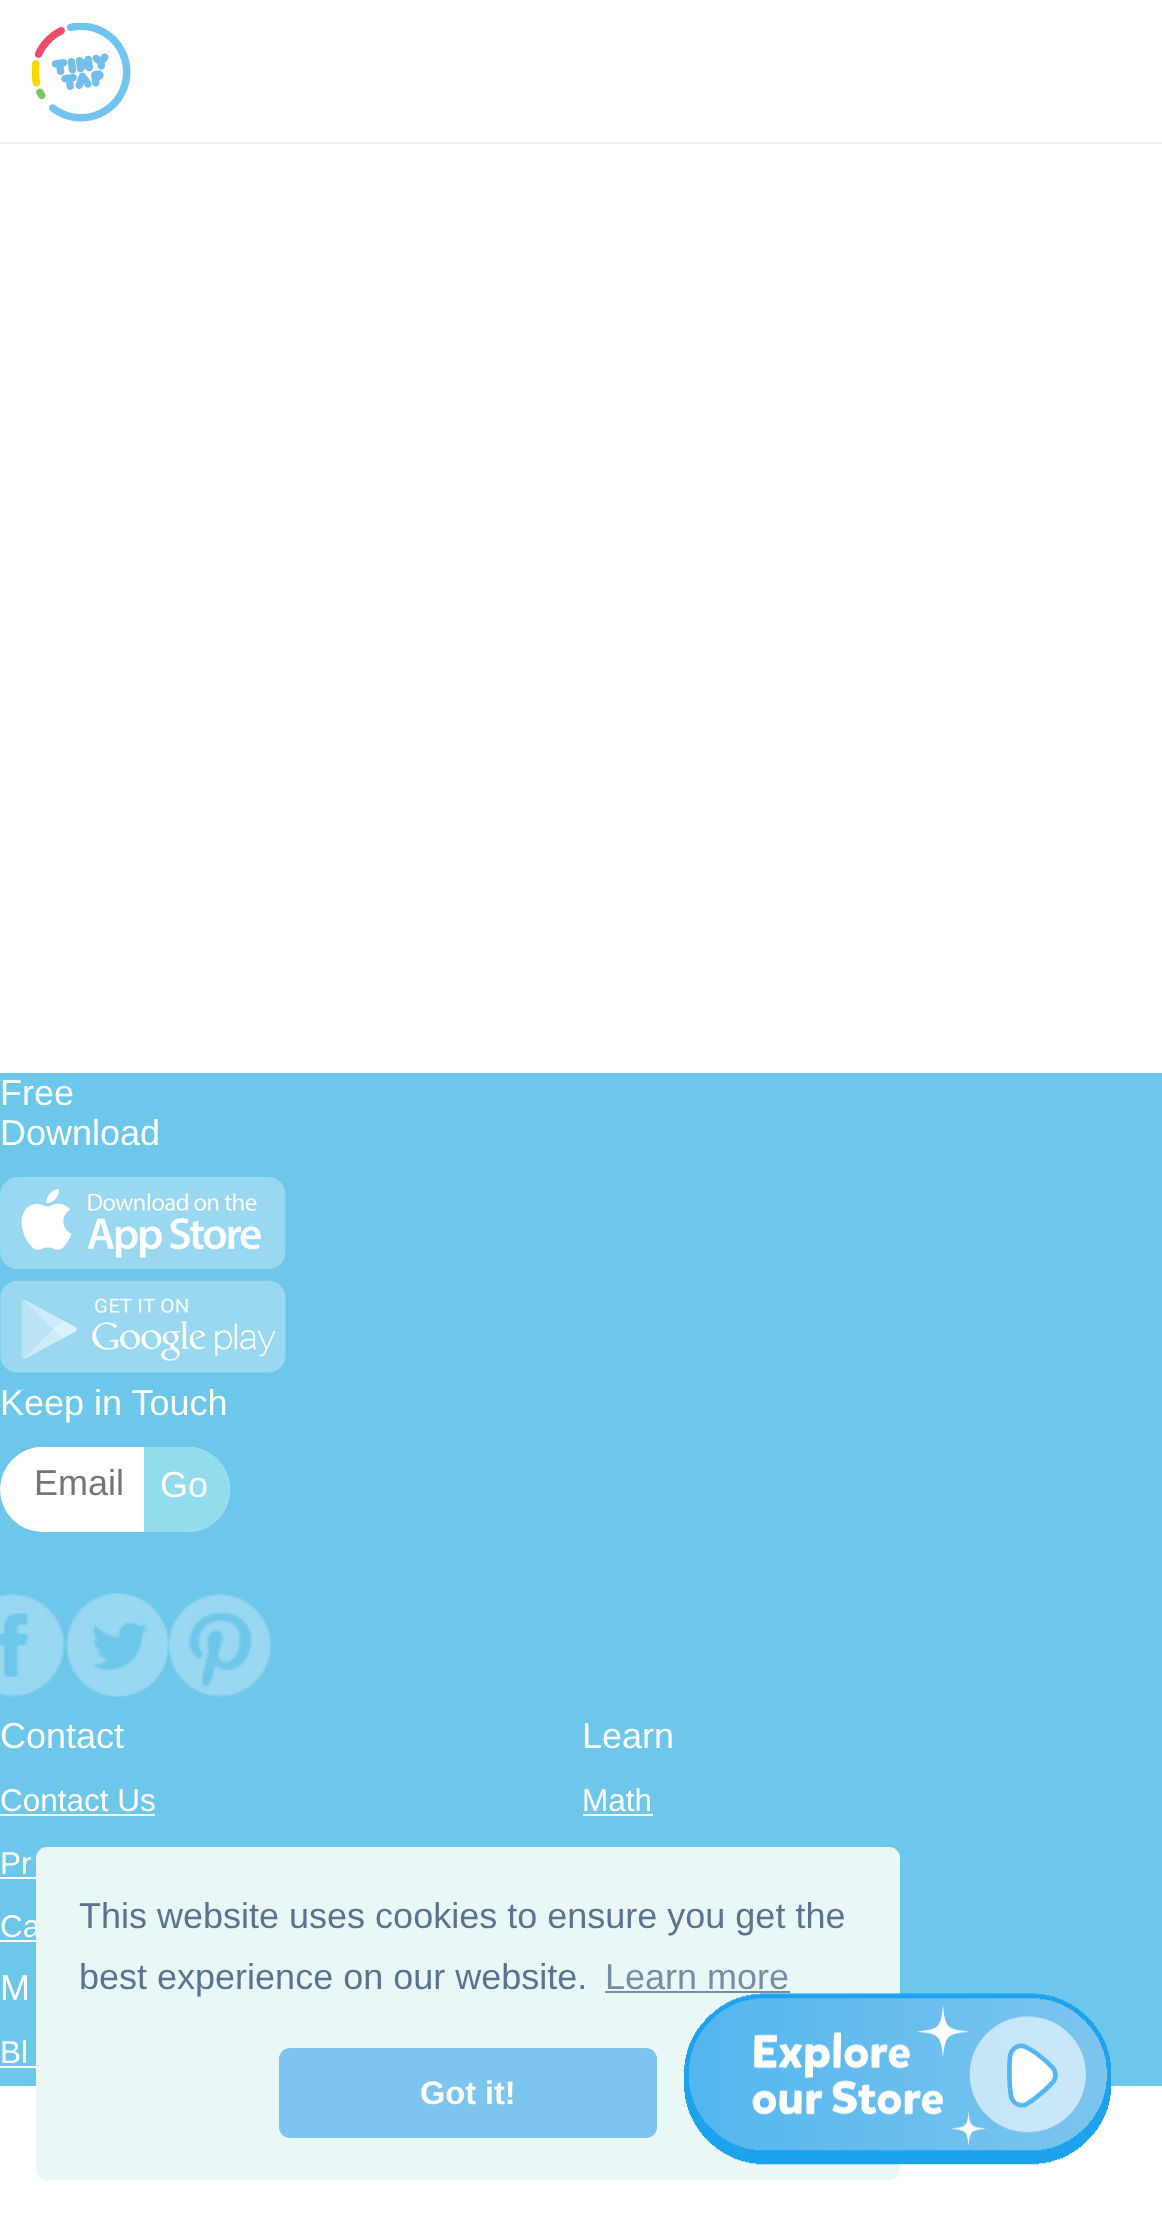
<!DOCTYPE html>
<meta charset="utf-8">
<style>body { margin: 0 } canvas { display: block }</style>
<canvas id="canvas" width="1162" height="2215"></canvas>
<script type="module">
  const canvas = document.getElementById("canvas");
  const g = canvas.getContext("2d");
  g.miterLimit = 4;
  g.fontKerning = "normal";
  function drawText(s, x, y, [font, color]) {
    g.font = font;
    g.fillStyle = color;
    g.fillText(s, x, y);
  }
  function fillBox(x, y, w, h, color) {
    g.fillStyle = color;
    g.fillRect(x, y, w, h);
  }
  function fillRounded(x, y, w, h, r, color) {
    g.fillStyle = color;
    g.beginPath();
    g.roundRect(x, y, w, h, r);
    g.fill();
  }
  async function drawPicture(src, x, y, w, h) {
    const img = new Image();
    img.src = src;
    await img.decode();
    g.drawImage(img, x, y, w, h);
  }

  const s1 = ["36px Liberation Sans", "#FFFFFF"];
  const s2 = ["36px Liberation Sans", "#757575"];
  const s3 = ["31.5px Liberation Sans", "#FFFFFF"];
  const s4 = ["36px Liberation Sans", "#5C7291"];
  const s5 = ["36px Liberation Sans", "#788DA5"];
  const s6 = ["bold 32.5px Liberation Sans", "#FFFFFF"];

  fillBox(0, 0, 1162, 2215, "#FFFFFF");
  fillBox(0, 142, 1162, 2, "#EDEEF0");
  await drawPicture("pic1.png", 32, 23, 99, 99);
  await drawPicture("pic2.png", 52, 50, 58, 40);
  fillBox(0, 1073, 1162, 1013, "#6DC7EA");
  drawText("Free", 0, 1105, s1);
  drawText("Download", 0, 1145, s1);
  await drawPicture("pic3.png", 0, 1177, 286, 92);
  await drawPicture("pic4.png", 0, 1280, 286, 93);
  drawText("Keep in Touch", 0, 1415, s1);
  fillRounded(0, 1447, 230, 85, 42.5, "#FFFFFF");
  g.save();
  g.beginPath();
  g.roundRect(0, 1447, 230, 85, 42.5);
  g.clip();
  fillBox(20, 1447, 124, 74, "#FFFFFF");
  g.restore();
  drawText("Email", 34, 1495, s2);
  g.fillStyle = "#93DCED";
  g.beginPath();
  g.roundRect(144, 1447, 86, 85, [0, 42.5, 42.5, 0]);
  g.fill();
  drawText("Go", 160, 1497, s1);
  await drawPicture("pic5.png", 0, 1593, 65, 104);
  await drawPicture("pic6.png", 65, 1593, 104, 104);
  await drawPicture("pic7.png", 169, 1593, 103, 104);
  drawText("Contact", 0, 1748, s1);
  drawText("Contact Us", 0, 1811, s3);
  fillBox(0, 1814, 155, 2, "#FFFFFF");
  drawText("Pr", 0, 1874, s3);
  fillBox(0, 1877, 36, 2, "#FFFFFF");
  drawText("Ca", 0, 1937, s3);
  fillBox(0, 1940, 36, 2, "#FFFFFF");
  drawText("Learn", 582, 1748, s1);
  drawText("Math", 582, 1811, s3);
  fillBox(583, 1814, 70, 2, "#FFFFFF");
  drawText("M", 0, 2000, s1);
  drawText("Bl", 0, 2063, s3);
  fillBox(0, 2066, 36, 2, "#FFFFFF");
  fillRounded(36, 1847, 864, 333, 11, "#EAF7F7");
  drawText("This website uses cookies to ensure you get the", 79, 1928, s4);
  drawText("best experience on our website.", 79, 1989, s4);
  drawText("Learn more", 605, 1989, s5);
  fillBox(605, 1991, 185, 2, "#788DA5");
  fillRounded(279, 2048, 378, 90, 11, "#7DC5EE");
  drawText("Got it!", 420, 2104, s6);
  await drawPicture("pic8.png", 684, 1993, 427, 172);
</script>
